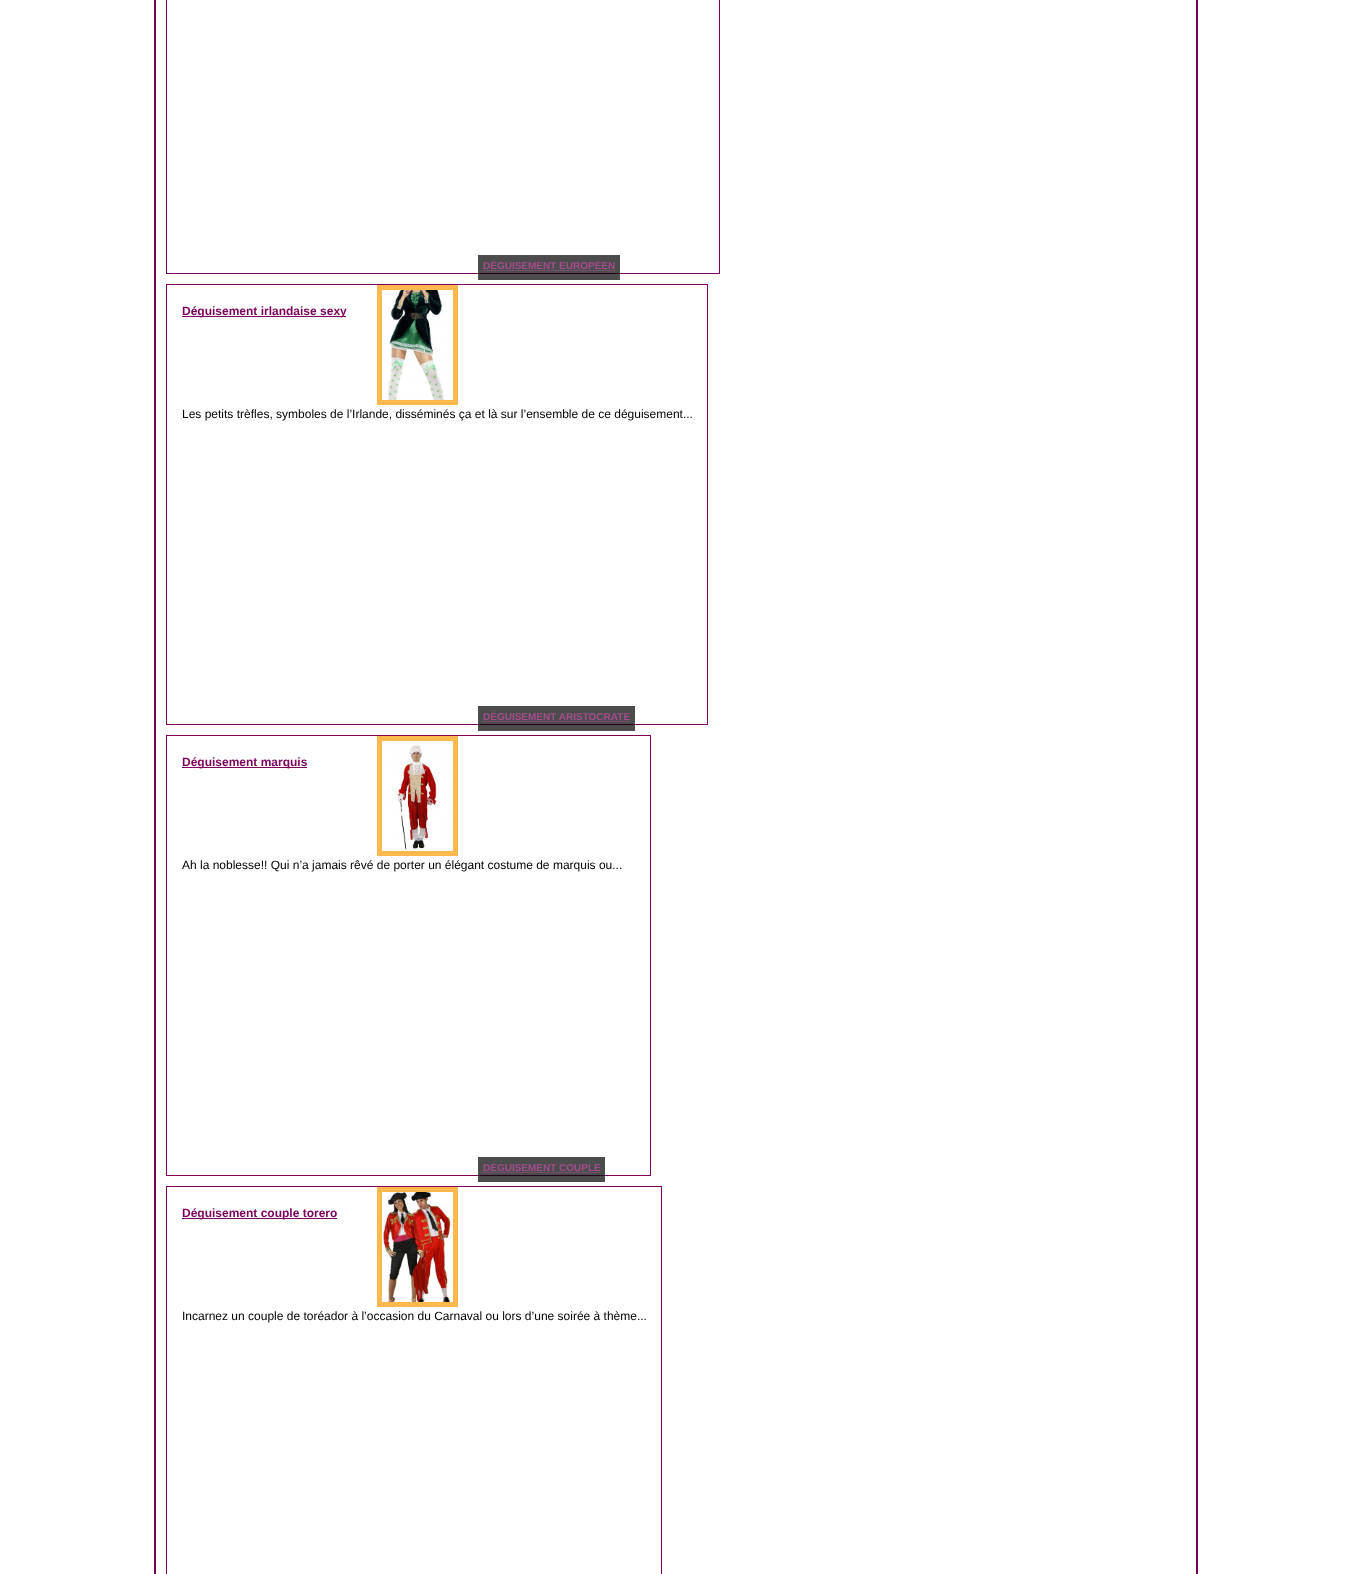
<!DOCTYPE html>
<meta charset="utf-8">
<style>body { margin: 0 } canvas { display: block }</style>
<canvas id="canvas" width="1361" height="1574"></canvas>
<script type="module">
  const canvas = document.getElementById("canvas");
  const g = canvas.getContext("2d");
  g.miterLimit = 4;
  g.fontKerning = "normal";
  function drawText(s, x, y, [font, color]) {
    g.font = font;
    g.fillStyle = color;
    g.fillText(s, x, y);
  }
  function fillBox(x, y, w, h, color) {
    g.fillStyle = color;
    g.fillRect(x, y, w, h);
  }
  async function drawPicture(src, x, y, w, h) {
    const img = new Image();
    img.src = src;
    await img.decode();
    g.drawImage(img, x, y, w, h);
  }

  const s1 = ["bold 10px Liberation Sans", "#A44D8D"];
  const s2 = ["bold 12px Liberation Sans", "#7D005C"];
  const s3 = ["12px Liberation Sans", "#000000"];

  fillBox(0, 0, 1361, 1574, "#FFFFFF");
  g.strokeStyle = "#7D005C";
  g.lineWidth = 2;
  g.strokeRect(155, -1, 1042, 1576);
  g.lineWidth = 1;
  g.strokeRect(166.5, -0.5, 553, 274);
  g.strokeRect(166.5, 284.5, 541, 440);
  fillBox(478, 255, 142, 25, "rgba(0, 0, 0, 0.7)");
  drawText("DÉGUISEMENT EUROPÉEN", 483, 269, s1);
  g.beginPath();
  g.moveTo(482.5, 270.5);
  g.lineTo(615, 270.5);
  g.strokeStyle = "#A44D8D";
  g.setLineDash([1, 1]);
  g.stroke();
  g.strokeStyle = "#FEB84E";
  g.lineWidth = 5;
  g.setLineDash([]);
  g.strokeRect(379.5, 287.5, 76, 115);
  await drawPicture("pic1.png", 382, 290, 71, 110);
  fillBox(182, 316, 164, 1, "#7D005C");
  drawText("Déguisement irlandaise sexy", 182, 315, s2);
  drawText("Les petits trèfles, symboles de l’Irlande, disséminés ça et là sur l’ensemble de ce déguisement...", 182, 418, s3);
  g.strokeStyle = "#7D005C";
  g.lineWidth = 1;
  g.strokeRect(166.5, 735.5, 484, 440);
  fillBox(478, 706, 157, 25, "rgba(0, 0, 0, 0.7)");
  drawText("DÉGUISEMENT ARISTOCRATE", 483, 720, s1);
  g.beginPath();
  g.moveTo(482.5, 721.5);
  g.lineTo(629.5, 721.5);
  g.strokeStyle = "#A44D8D";
  g.setLineDash([1, 1]);
  g.stroke();
  g.strokeStyle = "#FEB84E";
  g.lineWidth = 5;
  g.setLineDash([]);
  g.strokeRect(379.5, 738.5, 76, 115);
  await drawPicture("pic2.png", 382, 741, 71, 110);
  fillBox(182, 767, 125, 1, "#7D005C");
  drawText("Déguisement marquis", 182, 766, s2);
  drawText("Ah la noblesse!! Qui n’a jamais rêvé de porter un élégant costume de marquis ou...", 182, 869, s3);
  g.strokeStyle = "#7D005C";
  g.lineWidth = 1;
  g.strokeRect(166.5, 1186.5, 495, 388);
  fillBox(478, 1157, 127, 25, "rgba(0, 0, 0, 0.7)");
  drawText("DÉGUISEMENT COUPLE", 483, 1171, s1);
  g.beginPath();
  g.moveTo(482.5, 1172.5);
  g.lineTo(600.5, 1172.5);
  g.strokeStyle = "#A44D8D";
  g.setLineDash([1, 1]);
  g.stroke();
  g.strokeStyle = "#FEB84E";
  g.lineWidth = 5;
  g.setLineDash([]);
  g.strokeRect(379.5, 1189.5, 76, 115);
  await drawPicture("pic3.png", 382, 1192, 71, 110);
  fillBox(182, 1218, 155, 1, "#7D005C");
  drawText("Déguisement couple torero", 182, 1217, s2);
  drawText("Incarnez un couple de toréador à l’occasion du Carnaval ou lors d’une soirée à thème...", 182, 1320, s3);
</script>
